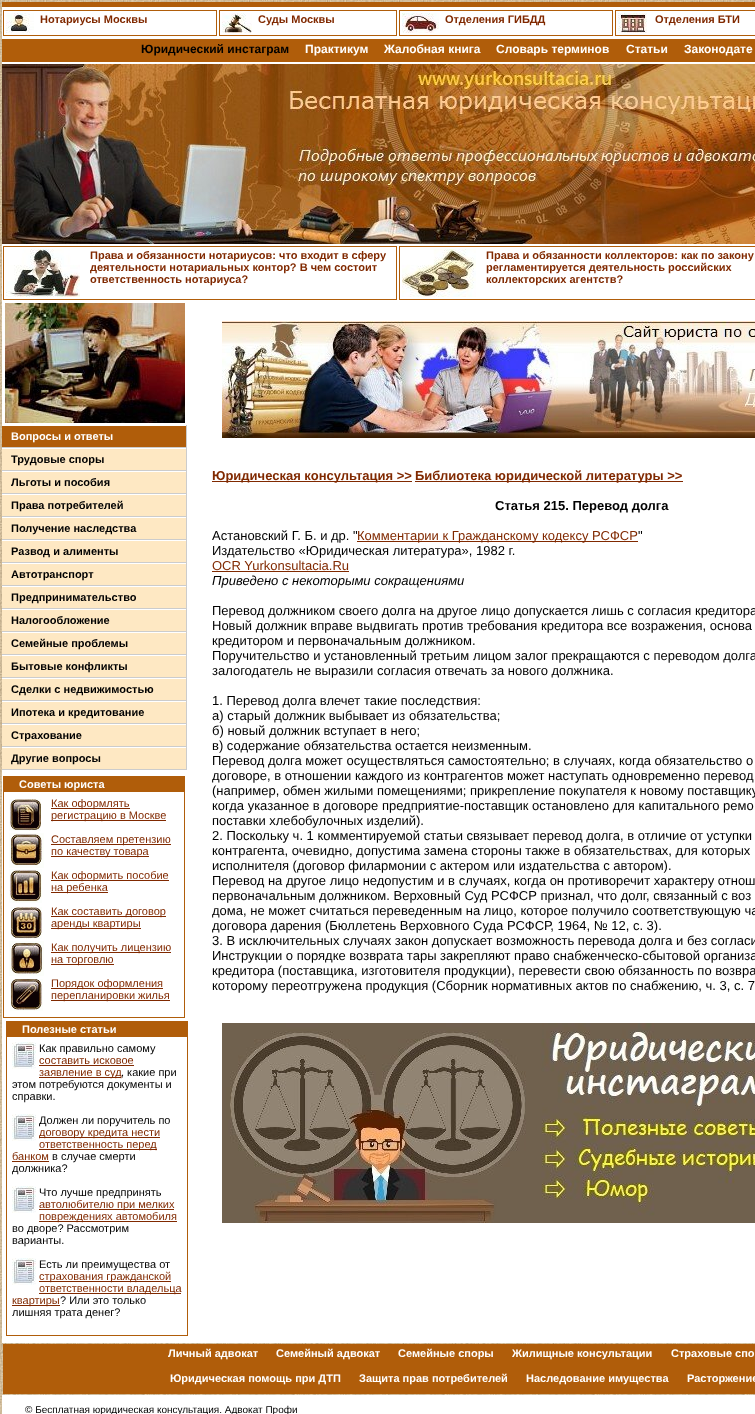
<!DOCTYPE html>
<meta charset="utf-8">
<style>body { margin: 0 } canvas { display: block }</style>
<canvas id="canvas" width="755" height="1414"></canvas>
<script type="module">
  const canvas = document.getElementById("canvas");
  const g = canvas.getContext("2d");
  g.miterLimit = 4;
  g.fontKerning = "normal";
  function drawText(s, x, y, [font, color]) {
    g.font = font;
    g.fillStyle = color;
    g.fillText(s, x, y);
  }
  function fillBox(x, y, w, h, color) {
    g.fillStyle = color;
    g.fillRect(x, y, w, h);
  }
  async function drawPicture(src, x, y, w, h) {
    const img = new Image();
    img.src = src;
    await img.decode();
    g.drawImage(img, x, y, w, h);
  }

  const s1 = ["bold 11px Liberation Sans", "#802900"];
  const s2 = ["bold 12px Liberation Sans", "#000000"];
  const s3 = ["bold 12px Liberation Sans", "#FFFFFF"];
  const s4 = ["bold 11px Liberation Sans", "#FFFFFF"];
  const s5 = ["bold 11px Liberation Sans", "#000000"];
  const s6 = ["11px Liberation Sans", "#802900"];
  const s7 = ["11px Liberation Sans", "#000000"];
  const s8 = ["bold 13px Liberation Sans", "#802900"];
  const s9 = ["bold 13px Liberation Sans", "#000000"];
  const s10 = ["13px Liberation Sans", "#000000"];
  const s11 = ["13px Liberation Sans", "#802900"];
  const s12 = ["italic 13px Liberation Sans", "#000000"];
  const s13 = ["10px Liberation Sans", "#000000"];

  fillBox(0, 0, 755, 1414, "#FFFFFF");
  await drawPicture("pic1.png", 0, 0, 755, 1414);
  fillBox(2, 2, 753, 5, "#B05D0A");
  fillBox(2, 7, 753, 32, "#FFFFFF");
  fillBox(3, 10, 214, 26, "#B05D0A");
  fillBox(4, 11, 212, 24, "#FFFFFF");
  await drawPicture("pic2.png", 6, 13, 28, 20);
  drawText("Нотариусы Москвы", 40, 23, s1);
  fillBox(219, 10, 178, 26, "#B05D0A");
  fillBox(220, 11, 176, 24, "#FFFFFF");
  await drawPicture("pic3.png", 222, 13, 30, 20);
  drawText("Суды Москвы", 258, 23, s1);
  fillBox(399, 10, 214, 26, "#B05D0A");
  fillBox(400, 11, 212, 24, "#FFFFFF");
  await drawPicture("pic4.png", 402, 13, 37, 20);
  drawText("Отделения ГИБДД", 445, 23, s1);
  fillBox(615, 10, 140, 26, "#B05D0A");
  fillBox(616, 11, 139, 24, "#FFFFFF");
  await drawPicture("pic5.png", 618, 13, 29, 20);
  drawText("Отделения БТИ", 655, 23, s1);
  fillBox(2, 39, 753, 23, "#B05D0A");
  drawText("Юридический инстаграм", 141, 53, s2);
  drawText("Практикум", 305, 53, s3);
  drawText("Жалобная книга", 384, 53, s3);
  drawText("Словарь терминов", 496, 53, s3);
  drawText("Статьи", 626, 53, s3);
  drawText("Законодате", 684, 53, s3);
  fillBox(2, 62, 753, 2, "#FFFFFF");
  await drawPicture("pic6.png", 2, 64, 753, 180);
  fillBox(2, 244, 753, 57, "#FFFFFF");
  fillBox(3, 246, 394, 54, "#B05D0A");
  fillBox(4, 247, 392, 52, "#FFFFFF");
  await drawPicture("pic7.png", 6, 249, 74, 48);
  drawText("Права и обязанности нотариусов: что входит в сферу", 90, 259, s1);
  drawText("деятельности нотариальных контор? В чем состоит", 90, 271, s1);
  drawText("ответственность нотариуса?", 90, 283, s1);
  fillBox(399, 246, 356, 54, "#B05D0A");
  fillBox(400, 247, 355, 52, "#FFFFFF");
  await drawPicture("pic8.png", 402, 249, 74, 48);
  drawText("Права и обязанности коллекторов: как по закону", 486, 259, s1);
  drawText("регламентируется деятельность российских", 486, 271, s1);
  drawText("коллекторских агентств?", 486, 283, s1);
  fillBox(2, 301, 753, 1042, "#FFFFFF");
  await drawPicture("pic9.png", 5, 303, 180, 120);
  fillBox(2, 426, 184, 21, "#B05D0A");
  fillBox(186, 425, 1, 345, "#CCCCCC");
  fillBox(2, 447, 185, 1, "#CCCCCC");
  drawText("Вопросы и ответы", 11, 440, s4);
  fillBox(2, 449, 184, 21, "#FEE8C3");
  fillBox(2, 470, 185, 1, "#CCCCCC");
  drawText("Трудовые споры", 11, 463, s5);
  fillBox(2, 472, 184, 21, "#FEE8C3");
  fillBox(2, 493, 185, 1, "#CCCCCC");
  drawText("Льготы и пособия", 11, 486, s5);
  fillBox(2, 495, 184, 21, "#FEE8C3");
  fillBox(2, 516, 185, 1, "#CCCCCC");
  drawText("Права потребителей", 11, 509, s5);
  fillBox(2, 518, 184, 21, "#FEE8C3");
  fillBox(2, 539, 185, 1, "#CCCCCC");
  drawText("Получение наследства", 11, 532, s5);
  fillBox(2, 541, 184, 21, "#FEE8C3");
  fillBox(2, 562, 185, 1, "#CCCCCC");
  drawText("Развод и алименты", 11, 555, s5);
  fillBox(2, 564, 184, 21, "#FEE8C3");
  fillBox(2, 585, 185, 1, "#CCCCCC");
  drawText("Автотранспорт", 11, 578, s5);
  fillBox(2, 587, 184, 21, "#FEE8C3");
  fillBox(2, 608, 185, 1, "#CCCCCC");
  drawText("Предпринимательство", 11, 601, s5);
  fillBox(2, 610, 184, 21, "#FEE8C3");
  fillBox(2, 631, 185, 1, "#CCCCCC");
  drawText("Налогообложение", 11, 624, s5);
  fillBox(2, 633, 184, 21, "#FEE8C3");
  fillBox(2, 654, 185, 1, "#CCCCCC");
  drawText("Семейные проблемы", 11, 647, s5);
  fillBox(2, 656, 184, 21, "#FEE8C3");
  fillBox(2, 677, 185, 1, "#CCCCCC");
  drawText("Бытовые конфликты", 11, 670, s5);
  fillBox(2, 679, 184, 21, "#FEE8C3");
  fillBox(2, 700, 185, 1, "#CCCCCC");
  drawText("Сделки с недвижимостью", 11, 693, s5);
  fillBox(2, 702, 184, 21, "#FEE8C3");
  fillBox(2, 723, 185, 1, "#CCCCCC");
  drawText("Ипотека и кредитование", 11, 716, s5);
  fillBox(2, 725, 184, 21, "#FEE8C3");
  fillBox(2, 746, 185, 1, "#CCCCCC");
  drawText("Страхование", 11, 739, s5);
  fillBox(2, 748, 184, 21, "#FEE8C3");
  fillBox(2, 769, 185, 1, "#CCCCCC");
  drawText("Другие вопросы", 11, 762, s5);
  fillBox(3, 776, 182, 242, "#B05D0A");
  drawText("Советы юриста", 19, 788, s4);
  fillBox(4, 792, 180, 225, "#FFFFFF");
  await drawPicture("pic10.png", 9, 799, 32, 32);
  fillBox(51, 808, 79, 1, "#802900");
  drawText("Как оформлять", 51, 807, s6);
  fillBox(51, 820, 115, 1, "#802900");
  drawText("регистрацию в Москве", 51, 819, s6);
  await drawPicture("pic11.png", 9, 833, 35, 35);
  fillBox(51, 844, 120, 1, "#802900");
  drawText("Составляем претензию", 51, 843, s6);
  fillBox(51, 856, 98, 1, "#802900");
  drawText("по качеству товара", 51, 855, s6);
  await drawPicture("pic12.png", 9, 869, 33, 34);
  fillBox(51, 880, 118, 1, "#802900");
  drawText("Как оформить пособие", 51, 879, s6);
  fillBox(51, 892, 57, 1, "#802900");
  drawText("на ребенка", 51, 891, s6);
  await drawPicture("pic13.png", 11, 907, 31, 32);
  fillBox(51, 916, 115, 1, "#802900");
  drawText("Как составить договор", 51, 915, s6);
  fillBox(51, 928, 90, 1, "#802900");
  drawText("аренды квартиры", 51, 927, s6);
  await drawPicture("pic14.png", 9, 941, 35, 35);
  fillBox(51, 952, 120, 1, "#802900");
  drawText("Как получить лицензию", 51, 951, s6);
  fillBox(51, 964, 63, 1, "#802900");
  drawText("на торговлю", 51, 963, s6);
  await drawPicture("pic15.png", 10, 979, 33, 32);
  fillBox(51, 988, 112, 1, "#802900");
  drawText("Порядок оформления", 51, 987, s6);
  fillBox(51, 1000, 119, 1, "#802900");
  drawText("перепланировки жилья", 51, 999, s6);
  fillBox(6, 1021, 182, 315, "#B05D0A");
  drawText("Полезные статьи", 22, 1033, s4);
  fillBox(7, 1037, 180, 298, "#FFFFFF");
  await drawPicture("pic16.png", 12, 1042, 24, 27);
  drawText("Как правильно самому", 39, 1052, s7);
  drawText("составить исковое", 39, 1064, s6);
  fillBox(39, 1065, 95, 1, "#802900");
  fillBox(39, 1077, 82, 1, "#802900");
  drawText("заявление в суд", 39, 1076, s6);
  drawText(", какие при", 121, 1076, s7);
  drawText("этом потребуются документы и", 12, 1088, s7);
  drawText("справки.", 12, 1100, s7);
  await drawPicture("pic16.png", 12, 1114, 24, 27);
  drawText("Должен ли поручитель по", 39, 1124, s7);
  fillBox(39, 1137, 121, 1, "#802900");
  drawText("договору кредита нести", 39, 1136, s6);
  fillBox(39, 1149, 118, 1, "#802900");
  drawText("ответственность перед", 39, 1148, s6);
  drawText("банком", 12, 1160, s6);
  fillBox(12, 1161, 37, 1, "#802900");
  drawText("в случае смерти", 52, 1160, s7);
  drawText("должника?", 12, 1172, s7);
  await drawPicture("pic16.png", 12, 1186, 24, 27);
  drawText("Что лучше предпринять", 39, 1196, s7);
  fillBox(39, 1209, 135, 1, "#802900");
  drawText("автолюбителю при мелких", 39, 1208, s6);
  fillBox(39, 1221, 138, 1, "#802900");
  drawText("повреждениях автомобиля", 39, 1220, s6);
  drawText("во дворе? Рассмотрим", 12, 1232, s7);
  drawText("варианты.", 12, 1244, s7);
  await drawPicture("pic16.png", 12, 1258, 24, 27);
  drawText("Есть ли преимущества от", 39, 1268, s7);
  fillBox(39, 1281, 132, 1, "#802900");
  drawText("страхования гражданской", 39, 1280, s6);
  fillBox(39, 1293, 142, 1, "#802900");
  drawText("ответственности владельца", 39, 1292, s6);
  fillBox(12, 1305, 48, 1, "#802900");
  drawText("квартиры", 12, 1304, s6);
  drawText("? Или это только", 60, 1304, s7);
  drawText("лишняя трата денег?", 12, 1316, s7);
  await drawPicture("pic17.png", 222, 321, 533, 117);
  fillBox(212, 481, 200, 1, "#802900");
  drawText("Юридическая консультация >>", 212, 480, s8);
  fillBox(415, 481, 268, 1, "#802900");
  drawText("Библиотека юридической литературы >>", 415, 480, s8);
  drawText("Статья 215. Перевод долга", 495, 510, s9);
  drawText("Астановский Г. Б. и др. \"", 212, 540, s10);
  fillBox(357, 541, 281, 1, "#802900");
  drawText("Комментарии к Гражданскому кодексу РСФСР", 357, 540, s11);
  drawText("\"", 638, 540, s10);
  drawText("Издательство «Юридическая литература», 1982 г.", 212, 555, s10);
  drawText("OCR Yurkonsultacia.Ru", 212, 570, s11);
  fillBox(212, 571, 137, 1, "#802900");
  drawText("Приведено с некоторыми сокращениями", 212, 585, s12);
  drawText("Перевод должником своего долга на другое лицо допускается лишь с согласия кредитора", 212, 615, s10);
  drawText("Новый должник вправе выдвигать против требования кредитора все возражения, основа", 212, 630, s10);
  drawText("кредитором и первоначальным должником.", 212, 645, s10);
  drawText("Поручительство и установленный третьим лицом залог прекращаются с переводом долга", 212, 660, s10);
  drawText("залогодатель не выразили согласия отвечать за нового должника.", 212, 675, s10);
  drawText("1. Перевод долга влечет такие последствия:", 212, 705, s10);
  drawText("а) старый должник выбывает из обязательства;", 212, 720, s10);
  drawText("б) новый должник вступает в него;", 212, 735, s10);
  drawText("в) содержание обязательства остается неизменным.", 212, 750, s10);
  drawText("Перевод долга может осуществляться самостоятельно; в случаях, когда обязательство о", 212, 765, s10);
  drawText("договоре, в отношении каждого из контрагентов может наступать одновременно перевод", 212, 780, s10);
  drawText("(например, обмен жилыми помещениями; прикрепление покупателя к новому поставщику", 212, 795, s10);
  drawText("когда указанное в договоре предприятие-поставщик остановлено для капитального ремо", 212, 810, s10);
  drawText("поставки хлебобулочных изделий).", 212, 825, s10);
  drawText("2. Поскольку ч. 1 комментируемой статьи связывает перевод долга, в отличие от уступки", 212, 840, s10);
  drawText("контрагента, очевидно, допустима замена стороны также в обязательствах, для которых", 212, 855, s10);
  drawText("исполнителя (договор филармонии с актером или издательства с автором).", 212, 870, s10);
  drawText("Перевод на другое лицо недопустим и в случаях, когда он противоречит характеру отнош", 212, 885, s10);
  drawText("первоначальным должником. Верховный Суд РСФСР признал, что долг, связанный с воз", 212, 900, s10);
  drawText("дома, не может считаться переведенным на лицо, которое получило соответствующую ча", 212, 915, s10);
  drawText("договора дарения (Бюллетень Верховного Суда РСФСР, 1964, № 12, с. 3).", 212, 930, s10);
  drawText("3. В исключительных случаях закон допускает возможность перевода долга и без согласи", 212, 945, s10);
  drawText("Инструкции о порядке возврата тары закрепляют право снабженческо-сбытовой организа", 212, 960, s10);
  drawText("кредитора (поставщика, изготовителя продукции), перевести свою обязанность по возвра", 212, 975, s10);
  drawText("которому переотгружена продукция (Сборник нормативных актов по снабжению, ч. 3, с. 7", 212, 990, s10);
  await drawPicture("pic18.png", 222, 1023, 533, 200);
  fillBox(3, 1344, 752, 50, "#B05D0A");
  drawText("Личный адвокат", 168, 1357, s4);
  drawText("Семейный адвокат", 276, 1357, s4);
  drawText("Семейные споры", 398, 1357, s4);
  drawText("Жилищные консультации", 512, 1357, s4);
  drawText("Страховые спо", 671, 1357, s4);
  drawText("Юридическая помощь при ДТП", 170, 1382, s4);
  drawText("Защита прав потребителей", 359, 1382, s4);
  drawText("Наследование имущества", 526, 1382, s4);
  drawText("Расторжение", 687, 1382, s4);
  fillBox(2, 1395, 753, 19, "#FFFFFF");
  drawText("© Бесплатная юридическая консультация. Адвокат Профи", 25, 1413, s13);
</script>
